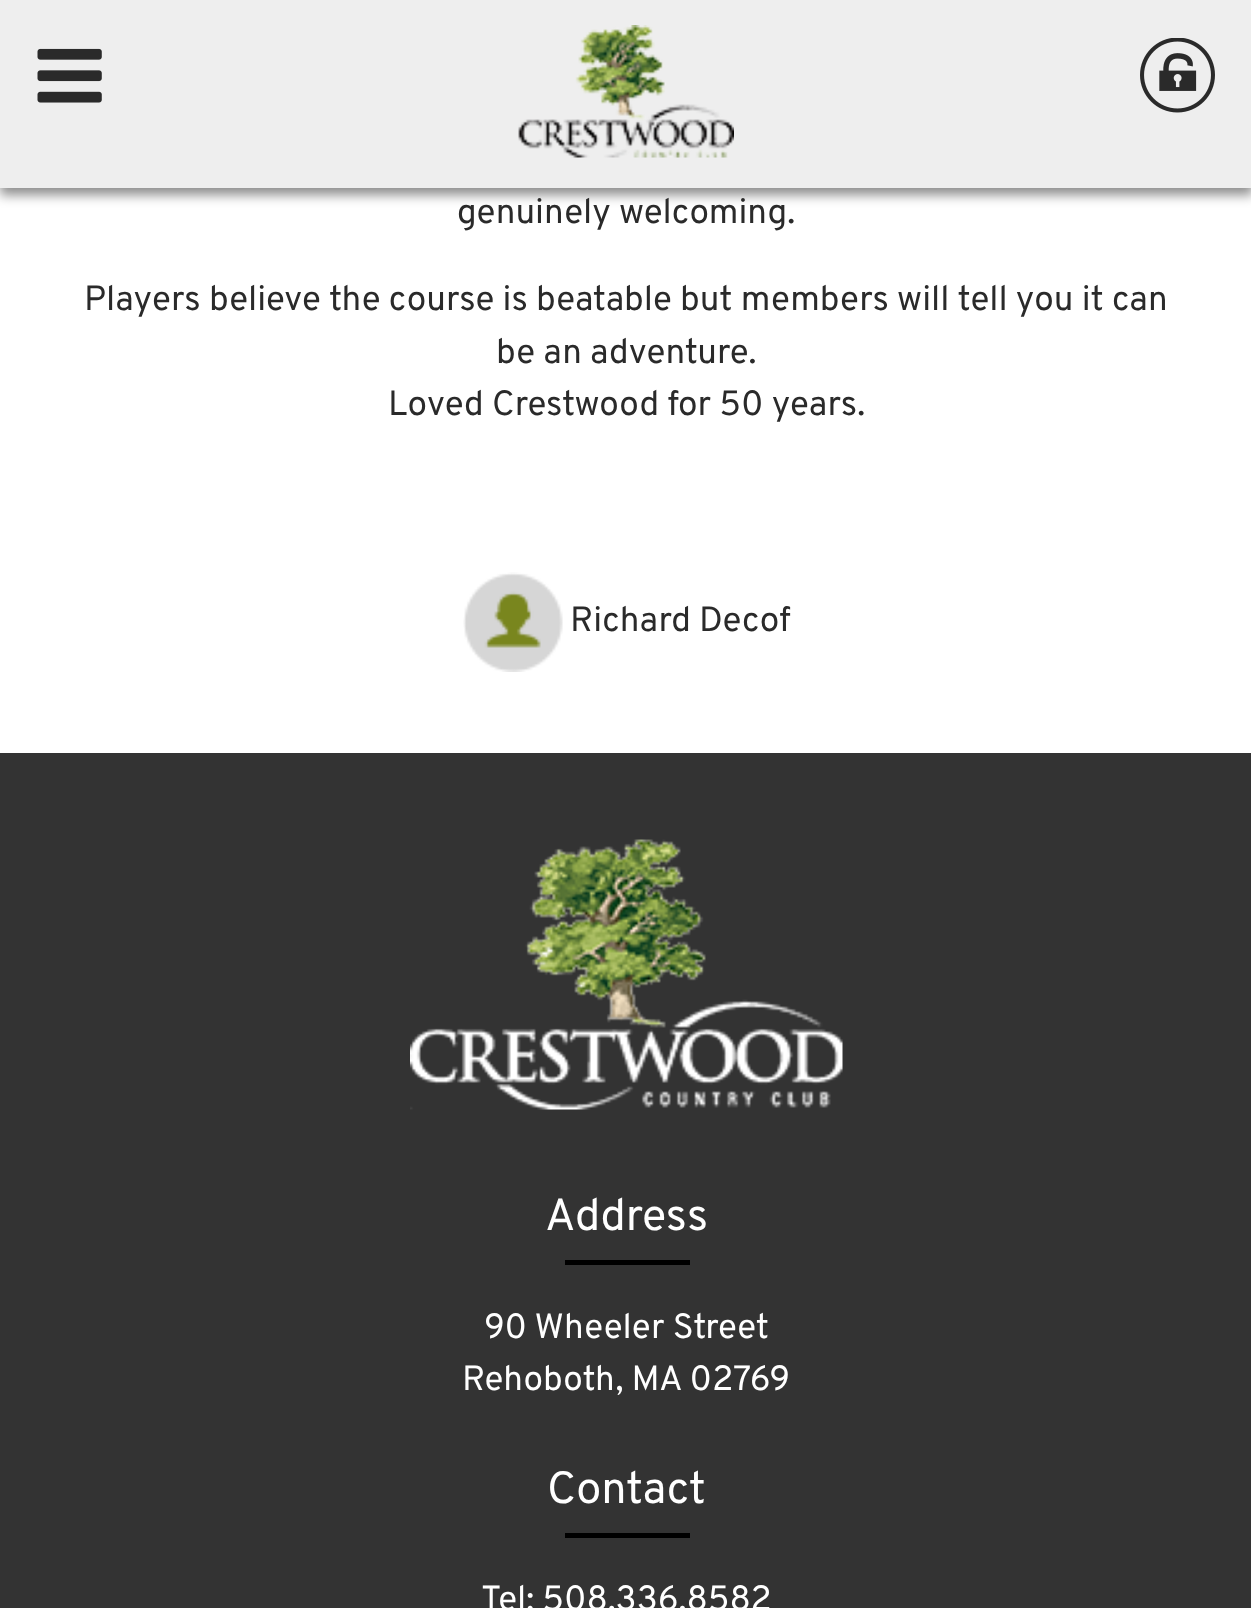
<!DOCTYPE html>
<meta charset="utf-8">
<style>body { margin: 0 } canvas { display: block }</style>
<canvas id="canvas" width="1251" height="1608"></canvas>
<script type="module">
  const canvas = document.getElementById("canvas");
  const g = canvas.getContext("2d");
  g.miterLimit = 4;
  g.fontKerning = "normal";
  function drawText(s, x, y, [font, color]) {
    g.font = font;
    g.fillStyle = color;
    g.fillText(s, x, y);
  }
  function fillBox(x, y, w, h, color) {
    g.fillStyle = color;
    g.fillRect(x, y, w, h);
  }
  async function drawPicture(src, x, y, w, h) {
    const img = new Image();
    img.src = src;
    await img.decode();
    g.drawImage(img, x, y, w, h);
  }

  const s1 = ["35px Overpass", "#2A2A2A"];
  const s2 = ["45px Overpass", "#FFFFFF"];
  const s3 = ["35px Overpass", "#FFFFFF"];

  fillBox(0, 0, 1251, 1608, "#333333");
  fillBox(0, 188, 1251, 565, "#FFFFFF");
  g.fillStyle = "rgba(0, 0, 0, 0.45)";
  g.filter = "blur(6px)";
  g.beginPath();
  g.rect(0, 8, 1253, 187);
  g.fill();
  g.filter = "none";
  fillBox(0, 0, 1251, 188, "#EEEEEE");
  await drawPicture("pic1.png", 37, 48, 65, 55);
  await drawPicture("pic2.png", 518, 25, 216, 133);
  await drawPicture("pic3.png", 1140, 38, 75, 75);
  drawText("genuinely welcoming.", 457, 223, s1);
  drawText("Players believe the course is beatable but members will tell you it can", 84, 310, s1);
  drawText("be an a", 496, 363, s1);
  drawText("dventure.", 609, 363, s1);
  drawText("Loved Crestwood for 50 years.", 388, 415, s1);
  await drawPicture("pic4.png", 463, 572, 100, 100);
  drawText("Richard Decof", 570, 631, s1);
  await drawPicture("pic5.png", 410, 839, 433, 271);
  drawText("Address", 545, 1230, s2);
  fillBox(565, 1260, 125, 5, "#000000");
  drawText("90 Wheeler Street", 484, 1338, s3);
  drawText("Rehoboth, MA 02769", 462, 1390, s3);
  drawText("Contact", 547, 1503, s2);
  fillBox(565, 1533, 125, 5, "#000000");
  drawText("Tel: 508.336.8582", 481, 1610, s3);
</script>
